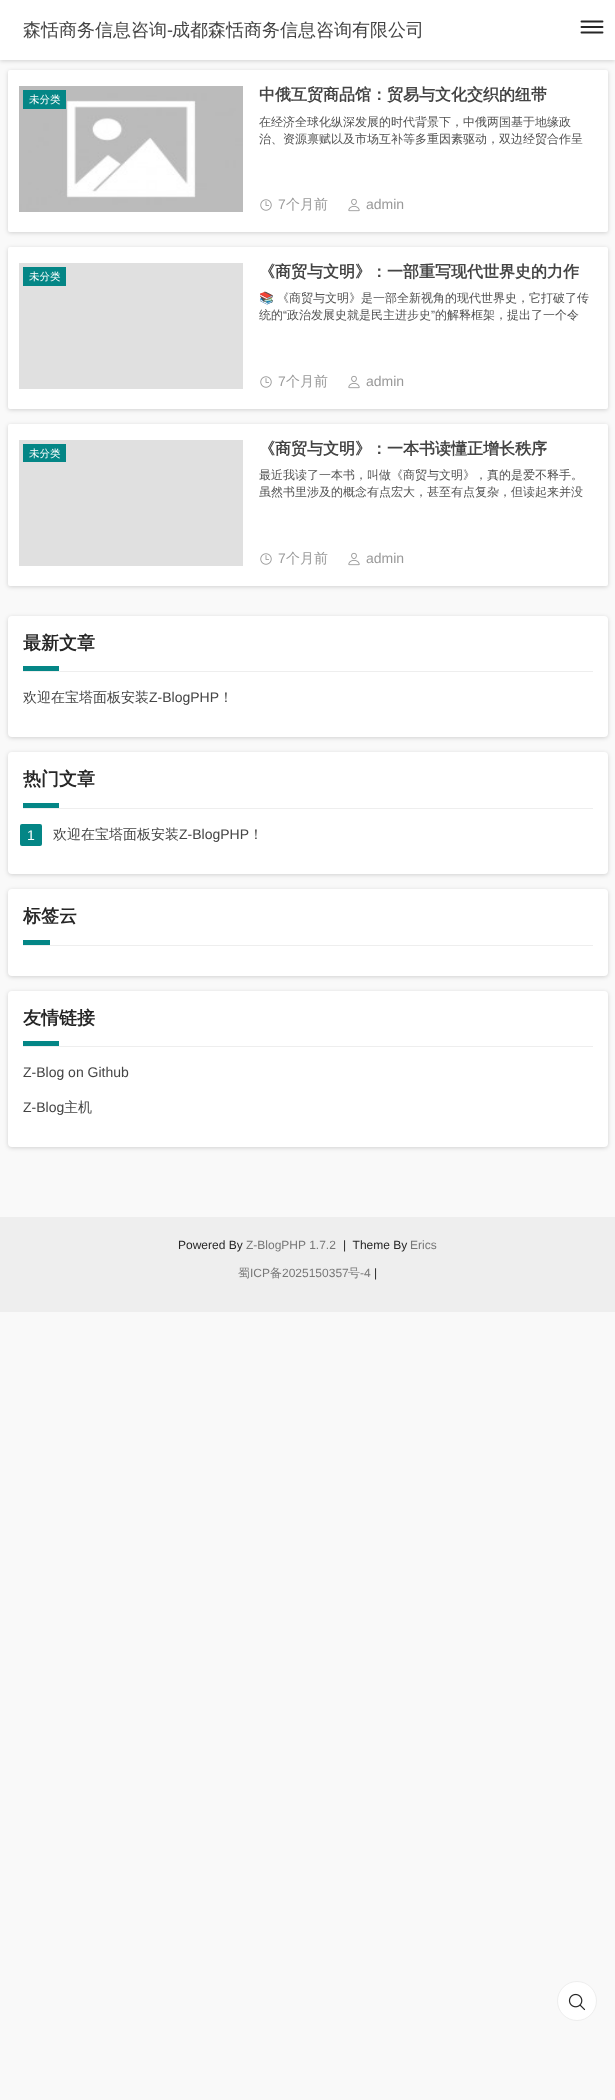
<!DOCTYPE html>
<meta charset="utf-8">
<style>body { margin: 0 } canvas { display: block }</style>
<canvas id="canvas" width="615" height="2100"></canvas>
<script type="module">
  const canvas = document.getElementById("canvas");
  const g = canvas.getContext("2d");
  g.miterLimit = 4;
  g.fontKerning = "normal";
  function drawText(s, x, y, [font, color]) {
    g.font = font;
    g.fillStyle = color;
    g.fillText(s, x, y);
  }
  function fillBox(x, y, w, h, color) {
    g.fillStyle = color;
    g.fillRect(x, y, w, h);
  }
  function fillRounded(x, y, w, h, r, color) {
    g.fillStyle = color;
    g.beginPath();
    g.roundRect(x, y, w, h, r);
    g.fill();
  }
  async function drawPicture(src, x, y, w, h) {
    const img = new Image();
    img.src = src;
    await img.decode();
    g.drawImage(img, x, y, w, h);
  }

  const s1 = ["500 18px WenQuanYi Zen Hei", "#444444"];
  const s2 = ["18px Liberation Sans", "#444444"];
  const s3 = ["500 10.5px WenQuanYi Zen Hei", "#FFFFFF"];
  const s4 = ["bold 16px WenQuanYi Zen Hei", "#444444"];
  const s5 = ["500 12px WenQuanYi Zen Hei", "#515151"];
  const s6 = ["14px Liberation Sans", "#999999"];
  const s7 = ["500 14px WenQuanYi Zen Hei", "#999999"];
  const s8 = ["12px Noto Color Emoji", "#515151"];
  const s9 = ["12px Liberation Sans", "#515151"];
  const s10 = ["bold 18px WenQuanYi Zen Hei", "#262626"];
  const s11 = ["500 14px WenQuanYi Zen Hei", "#444444"];
  const s12 = ["14px Liberation Sans", "#444444"];
  const s13 = ["14px Liberation Sans", "#FFFFFF"];
  const s14 = ["12px Liberation Sans", "#262626"];
  const s15 = ["12px Liberation Sans", "#777777"];
  const s16 = ["500 12px WenQuanYi Zen Hei", "#777777"];

  fillBox(0, 0, 615, 2100, "#F9F9F9");
  g.fillStyle = "rgba(0, 0, 0, 0.16)";
  g.filter = "blur(2px)";
  g.beginPath();
  g.rect(0, 1, 615, 60);
  g.fill();
  g.filter = "none";
  fillBox(0, 0, 615, 60, "#FFFFFF");
  drawText("森恬商务信息咨询", 23, 36, s1);
  drawText("-", 167, 36, s2);
  drawText("成都森恬商务信息咨询有限公司", 172, 36, s1);
  g.beginPath();
  g.moveTo(581.5, 21.5);
  g.lineTo(602.5, 21.5);
  g.moveTo(581.5, 27);
  g.lineTo(602.5, 27);
  g.moveTo(581.5, 32.5);
  g.lineTo(602.5, 32.5);
  g.strokeStyle = "#262626";
  g.lineWidth = 1.9;
  g.lineCap = "round";
  g.stroke();
  g.fillStyle = "rgba(0, 0, 0, 0.16)";
  g.filter = "blur(2px)";
  g.beginPath();
  g.roundRect(8, 71, 600, 162, 2);
  g.fill();
  g.filter = "none";
  fillRounded(8, 70, 600, 162, 2, "#FFFFFF");
  await drawPicture("pic1.png", 19, 86, 224, 126);
  fillBox(23, 90, 43, 19, "#048686");
  drawText("未分类", 29, 103, s3);
  drawText("中俄互贸商品馆：贸易与文化交织的纽带", 259, 100, s4);
  drawText("在经济全球化纵深发展的时代背景下，中俄两国基于地缘政", 259, 126, s5);
  drawText("治、资源禀赋以及市场互补等多重因素驱动，双边经贸合作呈", 259, 143, s5);
  await drawPicture("pic2.png", 260, 199, 12, 12);
  drawText("7", 278, 209, s6);
  drawText("个月前", 286, 209, s7);
  await drawPicture("pic3.png", 348, 198, 12, 14);
  drawText("admin", 366, 209, s6);
  g.fillStyle = "rgba(0, 0, 0, 0.16)";
  g.filter = "blur(2px)";
  g.beginPath();
  g.roundRect(8, 248, 600, 162, 2);
  g.fill();
  g.filter = "none";
  fillRounded(8, 247, 600, 162, 2, "#FFFFFF");
  fillBox(19, 263, 224, 126, "#E0E0E0");
  fillBox(23, 267, 43, 19, "#048686");
  drawText("未分类", 29, 280, s3);
  drawText("《商贸与文明》：一部重写现代世界史的力作", 259, 277, s4);
  drawText("📚", 259, 302, s8);
  drawText("《商贸与文明》是一部全新视角的现代世界史，它打破了传", 277, 302, s5);
  drawText("统的", 259, 319, s5);
  drawText("“", 283, 319, s9);
  drawText("政治发展史就是民主进步史", 287, 319, s5);
  drawText("”", 431, 319, s9);
  drawText("的解释框架，提出了一个令", 435, 319, s5);
  await drawPicture("pic2.png", 260, 376, 12, 12);
  drawText("7", 278, 386, s6);
  drawText("个月前", 286, 386, s7);
  await drawPicture("pic3.png", 348, 375, 12, 14);
  drawText("admin", 366, 386, s6);
  g.fillStyle = "rgba(0, 0, 0, 0.16)";
  g.filter = "blur(2px)";
  g.beginPath();
  g.roundRect(8, 425, 600, 162, 2);
  g.fill();
  g.filter = "none";
  fillRounded(8, 424, 600, 162, 2, "#FFFFFF");
  fillBox(19, 440, 224, 126, "#E0E0E0");
  fillBox(23, 444, 43, 18, "#048686");
  drawText("未分类", 29, 457, s3);
  drawText("《商贸与文明》：一本书读懂正增长秩序", 259, 454, s4);
  drawText("最近我读了一本书，叫做《商贸与文明》，真的是爱不释手。", 259, 479, s5);
  drawText("虽然书里涉及的概念有点宏大，甚至有点复杂，但读起来并没", 259, 496, s5);
  await drawPicture("pic2.png", 260, 553, 12, 12);
  drawText("7", 278, 563, s6);
  drawText("个月前", 286, 563, s7);
  await drawPicture("pic3.png", 348, 552, 12, 14);
  drawText("admin", 366, 563, s6);
  g.fillStyle = "rgba(0, 0, 0, 0.16)";
  g.filter = "blur(2px)";
  g.beginPath();
  g.roundRect(8, 617, 600, 121, 4);
  g.fill();
  g.filter = "none";
  fillRounded(8, 616, 600, 121, 4, "#FFFFFF");
  fillBox(23, 671, 570, 1, "#EEEEEE");
  drawText("最新文章", 23, 649, s10);
  fillBox(23, 666, 36, 5, "#048686");
  drawText("欢迎在宝塔面板安装", 23, 702, s11);
  drawText("Z-BlogPHP", 149, 702, s12);
  drawText("！", 219, 702, s11);
  g.fillStyle = "rgba(0, 0, 0, 0.16)";
  g.filter = "blur(2px)";
  g.beginPath();
  g.roundRect(8, 753, 600, 122, 4);
  g.fill();
  g.filter = "none";
  fillRounded(8, 752, 600, 122, 4, "#FFFFFF");
  fillBox(23, 808, 570, 1, "#EEEEEE");
  drawText("热门文章", 23, 785, s10);
  fillBox(23, 803, 36, 5, "#048686");
  fillRounded(20, 824, 22, 22, 2, "#048686");
  drawText("1", 27, 840, s13);
  drawText("欢迎在宝塔面板安装", 53, 839, s11);
  drawText("Z-BlogPHP", 179, 839, s12);
  drawText("！", 249, 839, s11);
  g.fillStyle = "rgba(0, 0, 0, 0.16)";
  g.filter = "blur(2px)";
  g.beginPath();
  g.roundRect(8, 890, 600, 87, 4);
  g.fill();
  g.filter = "none";
  fillRounded(8, 889, 600, 87, 4, "#FFFFFF");
  fillBox(23, 945, 570, 1, "#EEEEEE");
  drawText("标签云", 23, 922, s10);
  fillBox(23, 940, 27, 5, "#048686");
  g.fillStyle = "rgba(0, 0, 0, 0.16)";
  g.filter = "blur(2px)";
  g.beginPath();
  g.roundRect(8, 992, 600, 156, 4);
  g.fill();
  g.filter = "none";
  fillRounded(8, 991, 600, 156, 4, "#FFFFFF");
  fillBox(23, 1046, 570, 1, "#EEEEEE");
  drawText("友情链接", 23, 1024, s10);
  fillBox(23, 1041, 36, 5, "#048686");
  drawText("Z-Blog on Github", 23, 1077, s12);
  drawText("Z-Blog", 23, 1112, s12);
  drawText("主机", 64, 1112, s11);
  fillBox(0, 1217, 615, 95, "#EEEEEE");
  drawText("Powered By", 178, 1249, s14);
  drawText("Z-BlogPHP 1.7.2", 246, 1249, s15);
  drawText("|  Theme By", 343, 1249, s14);
  drawText("Erics", 410, 1249, s15);
  drawText("蜀", 238, 1277, s16);
  drawText("ICP", 250, 1277, s15);
  drawText("备", 270, 1277, s16);
  drawText("2025150357", 282, 1277, s15);
  drawText("号", 348, 1277, s16);
  drawText("-4", 360, 1277, s15);
  drawText("|", 374, 1277, s14);
  g.fillStyle = "#FFFFFF";
  g.beginPath();
  g.arc(577, 2001, 19.5, 0, Math.PI * 2);
  g.fill();
  g.strokeStyle = "#EEEEEE";
  g.lineWidth = 1;
  g.stroke();
  await drawPicture("pic4.png", 568, 1993, 18, 18);
</script>
